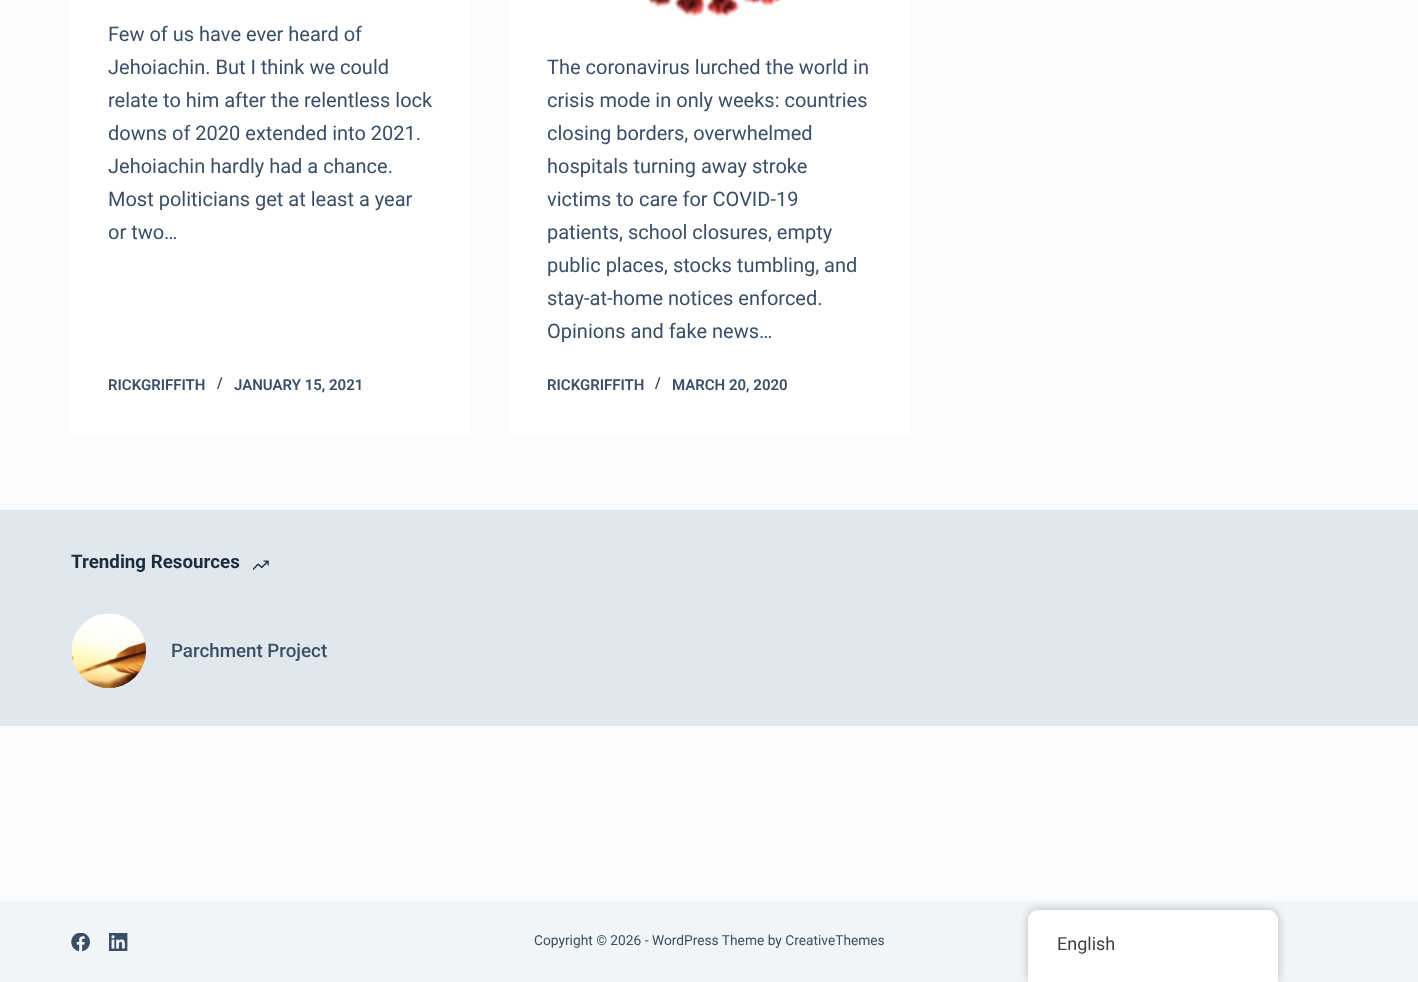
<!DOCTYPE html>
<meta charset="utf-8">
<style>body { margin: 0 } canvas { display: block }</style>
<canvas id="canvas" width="1418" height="982"></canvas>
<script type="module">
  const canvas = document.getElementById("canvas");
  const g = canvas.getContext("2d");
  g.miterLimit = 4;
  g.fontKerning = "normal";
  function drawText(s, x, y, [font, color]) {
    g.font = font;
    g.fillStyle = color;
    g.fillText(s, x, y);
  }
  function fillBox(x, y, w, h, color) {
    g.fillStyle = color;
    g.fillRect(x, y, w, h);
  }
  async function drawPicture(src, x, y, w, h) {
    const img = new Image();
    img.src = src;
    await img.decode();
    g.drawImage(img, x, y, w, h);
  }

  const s1 = ["20px Roboto", "#3A4F66"];
  const s2 = ["600 15px Roboto", "#3A4F66"];
  const s3 = ["bold 18.75px Roboto", "#1B2C3F"];
  const s4 = ["500 18.75px Roboto", "#3A4F66"];
  const s5 = ["13.75px Roboto", "#3A4F66"];
  const s6 = ["18px Roboto", "#404040"];

  fillBox(0, 0, 1418, 982, "#FAFBFC");
  fillBox(71, 0, 400, 435, "#FFFFFF");
  drawText("Few of us have ever heard of", 108, 41, s1);
  drawText("Jehoiachin. But I think we could", 108, 74, s1);
  drawText("relate to him after the relentless lock", 108, 107, s1);
  drawText("downs of 2020 extended into 2021.", 108, 140, s1);
  drawText("Jehoiachin hardly had a chance.", 108, 173, s1);
  drawText("Most politicians get at least a year", 108, 206, s1);
  drawText("or two…", 108, 239, s1);
  drawText("RICKGRIFFITH", 108, 390, s2);
  drawText("/", 217, 388, s2);
  drawText("JANUARY 15, 2021", 234, 390, s2);
  fillBox(509, 0, 401, 435, "#FFFFFF");
  await drawPicture("pic1.png", 643, 0, 140, 24);
  drawText("The coronavirus lurched the world in", 547, 74, s1);
  drawText("crisis mode in only weeks: countries", 547, 107, s1);
  drawText("closing borders, overwhelmed", 547, 140, s1);
  drawText("hospitals turning away stroke", 547, 173, s1);
  drawText("victims to care for COVID-19", 547, 206, s1);
  drawText("patients, school closures, empty", 547, 239, s1);
  drawText("public places, stocks tumbling, and", 547, 272, s1);
  drawText("stay-at-home notices enforced.", 547, 305, s1);
  drawText("Opinions and fake news…", 547, 338, s1);
  drawText("RICKGRIFFITH", 547, 390, s2);
  drawText("/", 655, 388, s2);
  drawText("MARCH 20, 2020", 672, 390, s2);
  fillBox(0, 510, 1418, 216, "#E1E8ED");
  drawText("Trending Resources", 71, 568, s3);
  await drawPicture("pic2.png", 253, 560, 16, 10);
  await drawPicture("pic3.png", 71, 613, 75, 75);
  drawText("Parchment Project", 171, 657, s4);
  fillBox(0, 901, 1418, 81, "#F2F5F7");
  await drawPicture("pic4.png", 71, 933, 19, 18);
  await drawPicture("pic5.png", 109, 933, 19, 18);
  drawText("Copyright © 2026 - WordPress Theme by CreativeThemes", 534, 945, s5);
  g.fillStyle = "rgba(0, 0, 0, 0.25)";
  g.filter = "blur(5px)";
  g.beginPath();
  g.roundRect(1028, 910, 250, 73, 10);
  g.fill();
  g.filter = "none";
  g.fillStyle = "#FFFFFF";
  g.beginPath();
  g.moveTo(1038, 910);
  g.lineTo(1268, 910);
  g.bezierCurveTo(1273.5, 910, 1278, 914.5, 1278, 920);
  g.lineTo(1278, 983);
  g.lineTo(1028, 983);
  g.lineTo(1028, 920);
  g.bezierCurveTo(1028, 914.5, 1032.5, 910, 1038, 910);
  g.closePath();
  g.fill();
  drawText("English", 1057, 950, s6);
</script>
